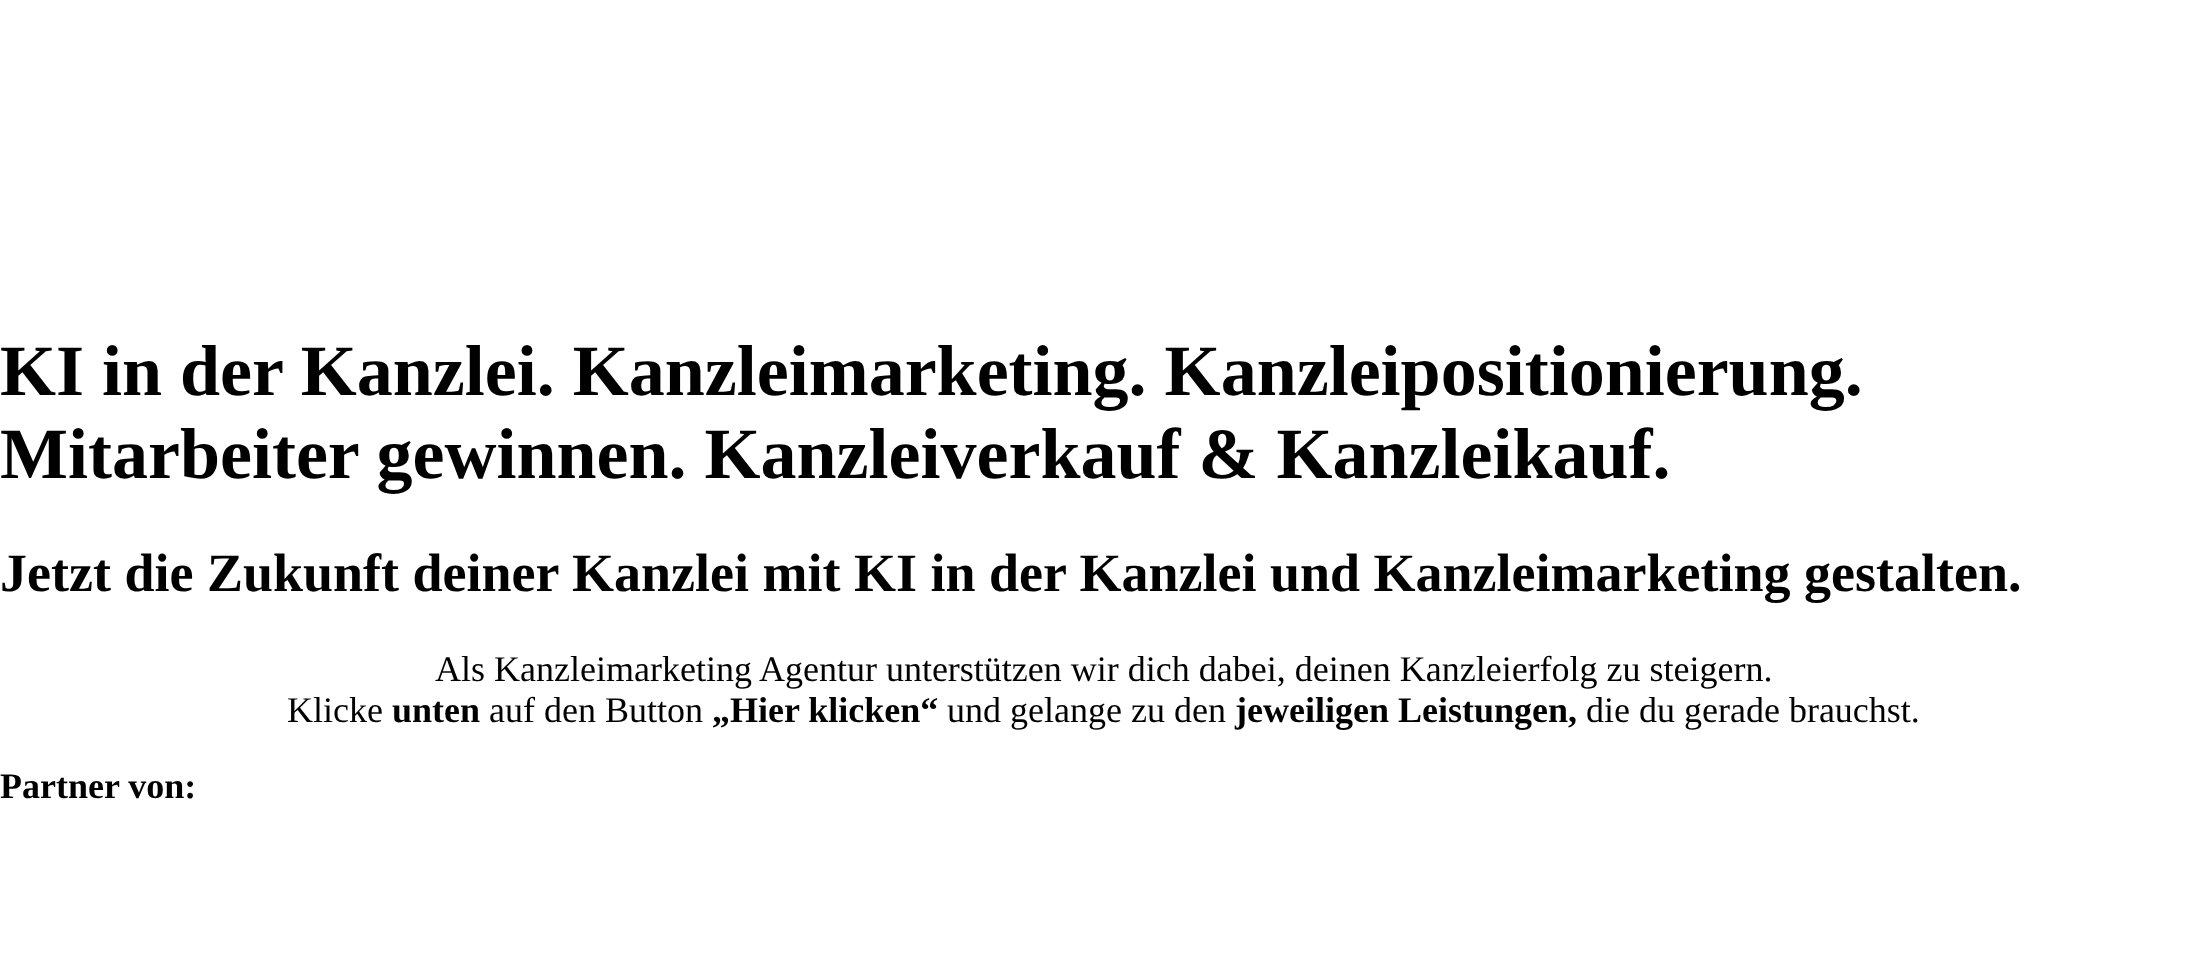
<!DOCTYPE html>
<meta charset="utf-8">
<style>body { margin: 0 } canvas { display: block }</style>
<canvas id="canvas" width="2206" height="968"></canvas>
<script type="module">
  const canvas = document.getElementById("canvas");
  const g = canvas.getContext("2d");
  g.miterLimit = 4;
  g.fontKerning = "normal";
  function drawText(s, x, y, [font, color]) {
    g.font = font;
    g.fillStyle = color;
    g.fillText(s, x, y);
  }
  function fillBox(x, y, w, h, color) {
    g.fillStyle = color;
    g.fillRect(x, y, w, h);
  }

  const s1 = ["bold 72px Liberation Serif", "#000000"];
  const s2 = ["bold 54px Liberation Serif", "#000000"];
  const s3 = ["36px Liberation Serif", "#000000"];
  const s4 = ["bold 36px Liberation Serif", "#000000"];

  fillBox(0, 0, 2206, 968, "#FFFFFF");
  drawText("KI in der Kanzlei. Kanzleimarketing. Kanzleipositionierung.", 0, 395, s1);
  drawText("Mitarbeiter gewinnen. Kanzleiverkauf & Kanzleikauf.", 0, 478, s1);
  drawText("Jetzt die Zukunft deiner Kanzlei mit KI in der Kanzlei und Kanzleimarketing gestalten.", 0, 591, s2);
  drawText("Als Kanzleimarketing Agentur unterstützen wir dich dabei, deinen Kanzleierfolg zu steigern.", 435, 681, s3);
  drawText("Klicke", 287, 722, s3);
  drawText("unten", 392, 722, s4);
  drawText("auf den Button", 489, 722, s3);
  drawText("„Hier klicken“", 712, 722, s4);
  drawText("und gelange zu den", 947, 722, s3);
  drawText("jeweiligen Leistungen,", 1235, 722, s4);
  drawText("die du gerade brauchst.", 1586, 722, s3);
  drawText("Partner von:", 0, 798, s4);
</script>
